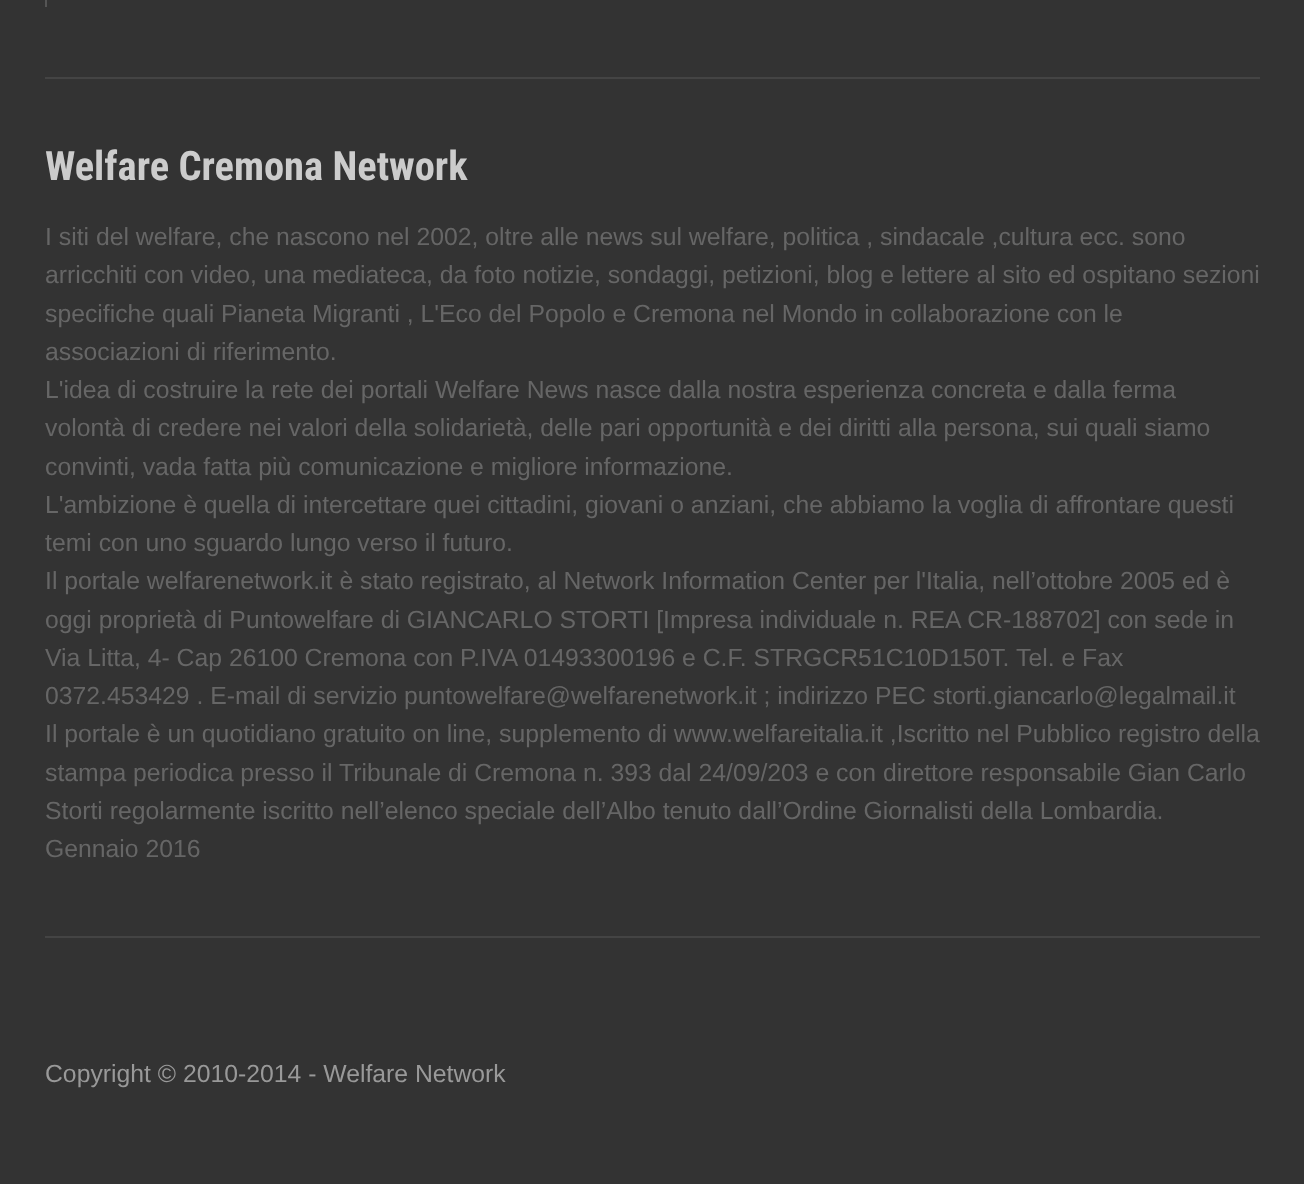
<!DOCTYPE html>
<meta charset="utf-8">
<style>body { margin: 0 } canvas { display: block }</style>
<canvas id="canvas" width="1304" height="1184"></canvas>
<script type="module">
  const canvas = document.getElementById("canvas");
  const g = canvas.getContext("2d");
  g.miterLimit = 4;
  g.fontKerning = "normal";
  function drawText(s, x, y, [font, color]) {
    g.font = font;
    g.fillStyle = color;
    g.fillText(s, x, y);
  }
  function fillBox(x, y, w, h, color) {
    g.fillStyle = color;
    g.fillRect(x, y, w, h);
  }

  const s1 = ["bold 40.5px Roboto Condensed", "#CCCCCC"];
  const s2 = ["24.75px Liberation Sans", "#666666"];
  const s3 = ["24.75px Liberation Sans", "#999999"];

  fillBox(0, 0, 1304, 1184, "#333333");
  fillBox(45, 77, 1215, 2, "#444444");
  fillBox(45, 0, 2, 7, "#555555");
  fillBox(45, 936, 1215, 2, "#444444");
  drawText("Welfare Cremona Network", 45, 180, s1);
  drawText("I siti del welfare, che nascono nel 2002, oltre alle news sul welfare, politica , sindacale ,cultura ecc. sono", 45, 245, s2);
  drawText("arricchiti con video, una mediateca, da foto notizie, sondaggi, petizioni, blog e lettere al sito ed ospitano sezioni", 45, 283, s2);
  drawText("specifiche quali Pianeta Migranti , L'Eco del Popolo e Cremona nel Mondo in collaborazione con le", 45, 322, s2);
  drawText("associazioni di riferimento.", 45, 360, s2);
  drawText("L'idea di costruire la rete dei portali Welfare News nasce dalla nostra esperienza concreta e dalla ferma", 45, 398, s2);
  drawText("volontà di credere nei valori della solidarietà, delle pari opportunità e dei diritti alla persona, sui quali siamo", 45, 436, s2);
  drawText("convinti, vada fatta più comunicazione e migliore informazione.", 45, 475, s2);
  drawText("L'ambizione è quella di intercettare quei cittadini, giovani o anziani, che abbiamo la voglia di affrontare questi", 45, 513, s2);
  drawText("temi con uno sguardo lungo verso il futuro.", 45, 551, s2);
  drawText("Il portale welfarenetwork.it è stato registrato, al Network Information Center per l'Italia, nell’ottobre 2005 ed è", 45, 589, s2);
  drawText("oggi proprietà di Puntowelfare di GIANCARLO STORTI [Impresa individuale n. REA CR-188702] con sede in", 45, 628, s2);
  drawText("Via Litta, 4- Cap 26100 Cremona con P.IVA 01493300196 e C.F. STRGCR51C10D150T.", 45, 666, s2);
  drawText("Tel. e Fax", 1016, 666, s2);
  drawText("0372.453429 . E-mail di servizio puntowelfare@welfarenetwork.it ; indirizzo PEC storti.giancarlo@legalmail.it", 45, 704, s2);
  drawText("Il portale è un quotidiano gratuito on line, supplemento di www.welfareitalia.it ,Iscritto nel Pubblico registro della", 45, 742, s2);
  drawText("stampa periodica presso il Tribunale di Cremona n. 393 dal 24/09/203 e con direttore responsabile Gian Carlo", 45, 781, s2);
  drawText("Storti regolarmente iscritto nell’elenco speciale dell’Albo tenuto dall’Ordine Giornalisti della Lombardia.", 45, 819, s2);
  drawText("Gennaio 2016", 45, 857, s2);
  drawText("Copyright © 2010-2014 - Welfare Network", 45, 1082, s3);
</script>
